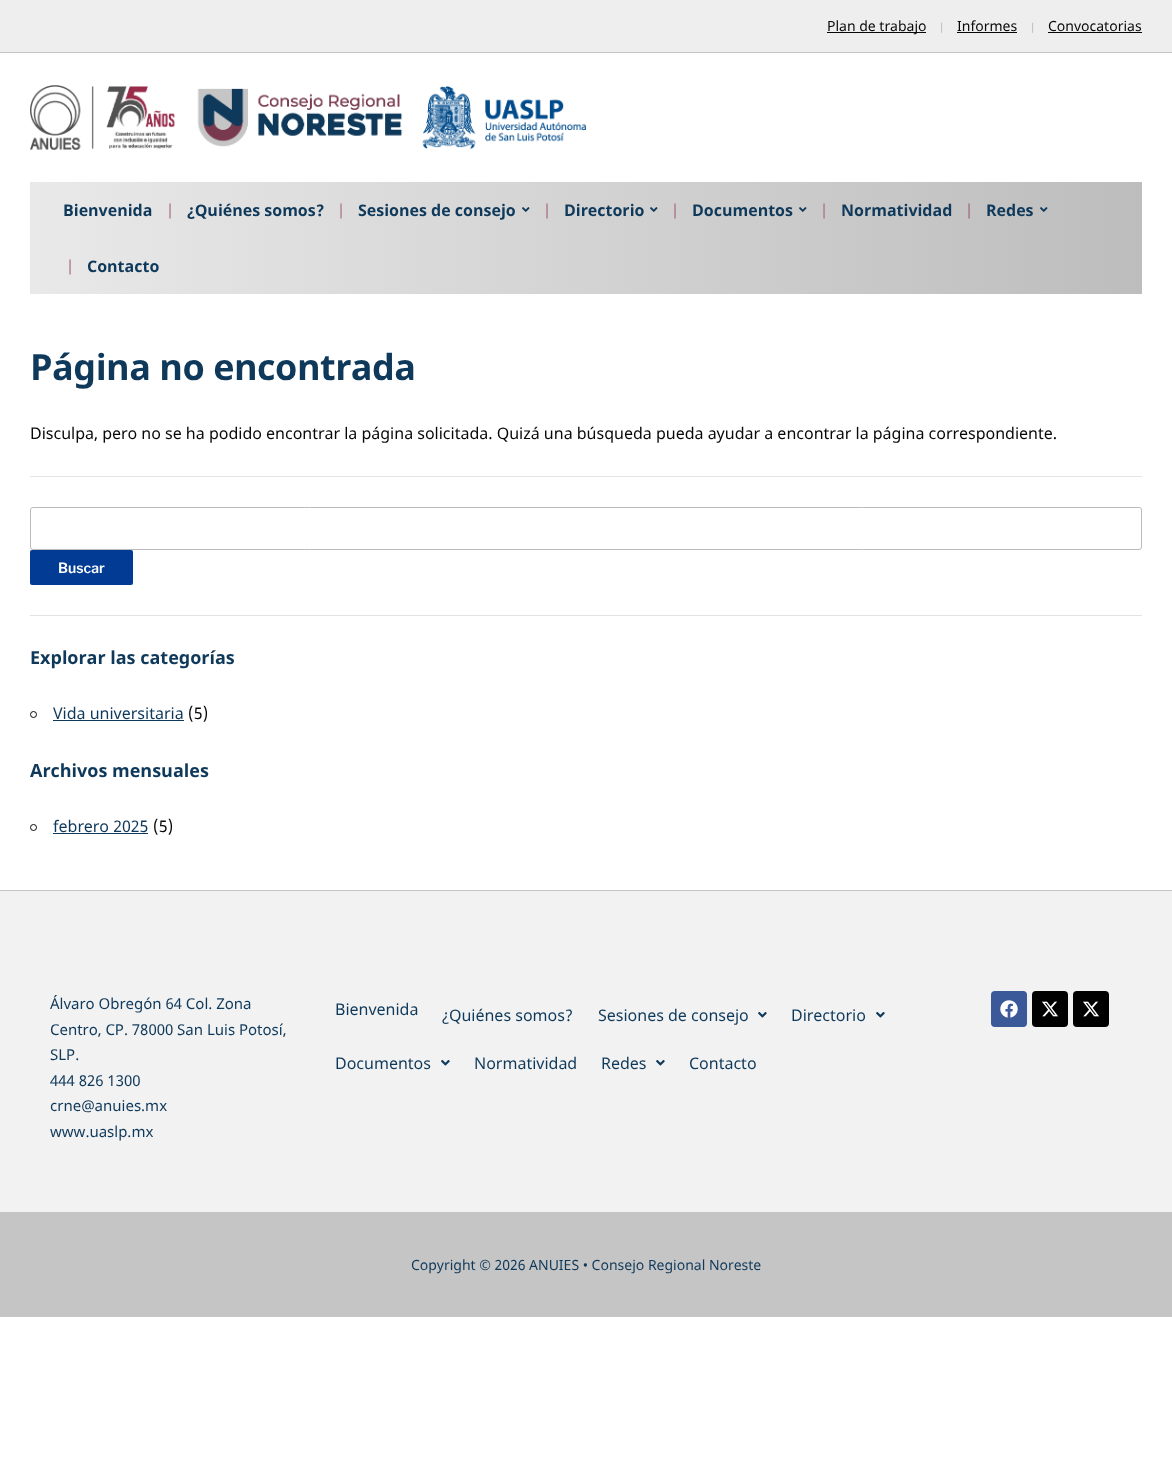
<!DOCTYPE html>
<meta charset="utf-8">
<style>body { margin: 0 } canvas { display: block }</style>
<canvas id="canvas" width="1172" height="1465"></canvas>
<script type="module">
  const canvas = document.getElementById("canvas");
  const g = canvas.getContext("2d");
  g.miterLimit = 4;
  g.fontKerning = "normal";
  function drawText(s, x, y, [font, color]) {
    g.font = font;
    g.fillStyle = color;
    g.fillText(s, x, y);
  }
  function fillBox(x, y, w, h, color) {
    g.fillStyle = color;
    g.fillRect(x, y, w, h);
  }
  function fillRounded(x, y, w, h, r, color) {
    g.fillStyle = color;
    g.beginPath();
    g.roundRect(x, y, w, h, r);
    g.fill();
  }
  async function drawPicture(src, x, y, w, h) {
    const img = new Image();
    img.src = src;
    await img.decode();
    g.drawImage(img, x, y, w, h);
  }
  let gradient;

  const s1 = ["14px Noto Sans", "#080808"];
  const s2 = ["10px Noto Sans", "#BAABAB"];
  const s3 = ["bold 16px Noto Sans", "#0F395A"];
  const s4 = ["bold 15px Noto Sans", "#B58C98"];
  const s5 = ["bold 15px Noto Sans", "#AE8591"];
  const s6 = ["bold 15px Noto Sans", "#A67D89"];
  const s7 = ["bold 36px Noto Sans", "#0F395A"];
  const s8 = ["16px Noto Sans", "#080808"];
  const s9 = ["600 14px Libre Franklin", "#FFFFFF"];
  const s10 = ["bold 18px Noto Sans", "#0F395A"];
  const s11 = ["16px Noto Sans", "#0F395A"];
  const s12 = ["15px Noto Sans", "#0F395A"];
  const s13 = ["14px Noto Sans", "#0F395A"];

  fillBox(0, 0, 1172, 1465, "#FFFFFF");
  fillBox(0, 0, 1172, 52, "#EEEEEE");
  fillBox(0, 52, 1172, 1, "#C6C5C5");
  fillBox(827, 32, 99, 1, "#080808");
  drawText("Plan de trabajo", 827, 31, s1);
  drawText("|", 939, 31, s2);
  drawText("Informes", 957, 31, s1);
  fillBox(957, 32, 60, 1, "#080808");
  drawText("|", 1030, 31, s2);
  drawText("Convocatorias", 1048, 31, s1);
  fillBox(1048, 32, 94, 1, "#080808");
  await drawPicture("pic1.png", 30, 85, 556, 65);
  gradient = g.createLinearGradient(30, 238, 1142, 238);
  gradient.addColorStop(0, "#EAE9E9");
  gradient.addColorStop(1, "#BEBDBD");
  g.fillStyle = gradient;
  g.fillRect(30, 182, 1112, 112);
  drawText("Bienvenida", 63, 216, s3);
  drawText("|", 166, 216, s4);
  drawText("¿Quiénes somos?", 187, 216, s3);
  drawText("|", 337, 216, s4);
  drawText("Sesiones de consejo", 358, 216, s3);
  await drawPicture("pic2.png", 522, 207, 8, 5);
  drawText("|", 543, 216, s5);
  drawText("Directorio", 564, 216, s3);
  await drawPicture("pic3.png", 650, 207, 8, 5);
  drawText("|", 671, 216, s5);
  drawText("Documentos", 692, 216, s3);
  await drawPicture("pic4.png", 799, 207, 8, 5);
  drawText("|", 820, 216, s5);
  drawText("Normatividad", 841, 216, s3);
  drawText("|", 965, 216, s6);
  drawText("Redes", 986, 216, s3);
  await drawPicture("pic5.png", 1040, 207, 8, 5);
  drawText("|", 66, 272, s4);
  drawText("Contacto", 87, 272, s3);
  g.letterSpacing = "-0.5px";
  drawText("Página no encontrada", 30, 380, s7);
  g.letterSpacing = "0px";
  drawText("Disculpa, pero no se ha podido encontrar la página solicitada. Quizá una búsqueda pueda ayudar a encontrar la página correspondiente.", 30, 439, s8);
  fillBox(30, 476, 1112, 1, "#E3E3E3");
  g.beginPath();
  g.roundRect(30.5, 507.5, 1111, 42, 2.5);
  g.strokeStyle = "#BBBBBB";
  g.stroke();
  fillRounded(30, 550, 103, 35, 2, "#013B93");
  drawText("Buscar", 58, 573, s9);
  fillBox(30, 615, 1112, 1, "#E3E3E3");
  drawText("Explorar las categorías", 30, 664, s10);
  g.beginPath();
  g.arc(33.5, 714.5, 3, 0, Math.PI * 2);
  g.strokeStyle = "#080808";
  g.stroke();
  drawText("Vida universitaria", 53, 719, s11);
  fillBox(53, 720, 131, 1, "#0F395A");
  drawText("(5)", 188, 719, s8);
  drawText("Archivos mensuales", 30, 777, s10);
  g.beginPath();
  g.arc(33.5, 827.5, 3, 0, Math.PI * 2);
  g.stroke();
  drawText("febrero 2025", 53, 832, s11);
  fillBox(53, 833, 95, 1, "#0F395A");
  drawText("(5)", 153, 832, s8);
  fillBox(0, 891, 1172, 321, "#F2F2F2");
  fillBox(0, 890, 1172, 1, "#C6C5C5");
  drawText("Álvaro Obregón 64 Col. Zona", 50, 1009, s12);
  drawText("Centro, CP. 78000 San Luis Potosí,", 50, 1035, s12);
  drawText("SLP.", 50, 1060, s12);
  drawText("444 826 1300", 50, 1086, s12);
  drawText("crne@anuies.mx", 50, 1111, s12);
  drawText("www.uaslp.mx", 50, 1137, s12);
  drawText("Bienvenida", 335, 1015, s11);
  drawText("¿Quiénes somos?", 442, 1021, s11);
  drawText("Sesiones de consejo", 598, 1021, s11);
  await drawPicture("pic6.png", 758, 1012, 9, 6);
  drawText("Directorio", 791, 1021, s11);
  await drawPicture("pic6.png", 876, 1012, 9, 6);
  drawText("Documentos", 335, 1069, s11);
  await drawPicture("pic6.png", 441, 1060, 9, 6);
  drawText("Normatividad", 474, 1069, s11);
  drawText("Redes", 601, 1069, s11);
  await drawPicture("pic6.png", 656, 1060, 9, 6);
  drawText("Contacto", 689, 1069, s11);
  fillRounded(991, 991, 36, 36, 4, "#3B5998");
  await drawPicture("pic7.png", 1000, 1000, 18, 18);
  fillRounded(1032, 991, 36, 36, 4, "#000000");
  await drawPicture("pic8.png", 1042, 1001, 16, 16);
  fillRounded(1073, 991, 36, 36, 4, "#000000");
  await drawPicture("pic8.png", 1083, 1001, 16, 16);
  fillBox(0, 1212, 1172, 105, "#C6C5C5");
  drawText("Copyright © 2026 ANUIES • Consejo Regional Noreste", 411, 1270, s13);
</script>
